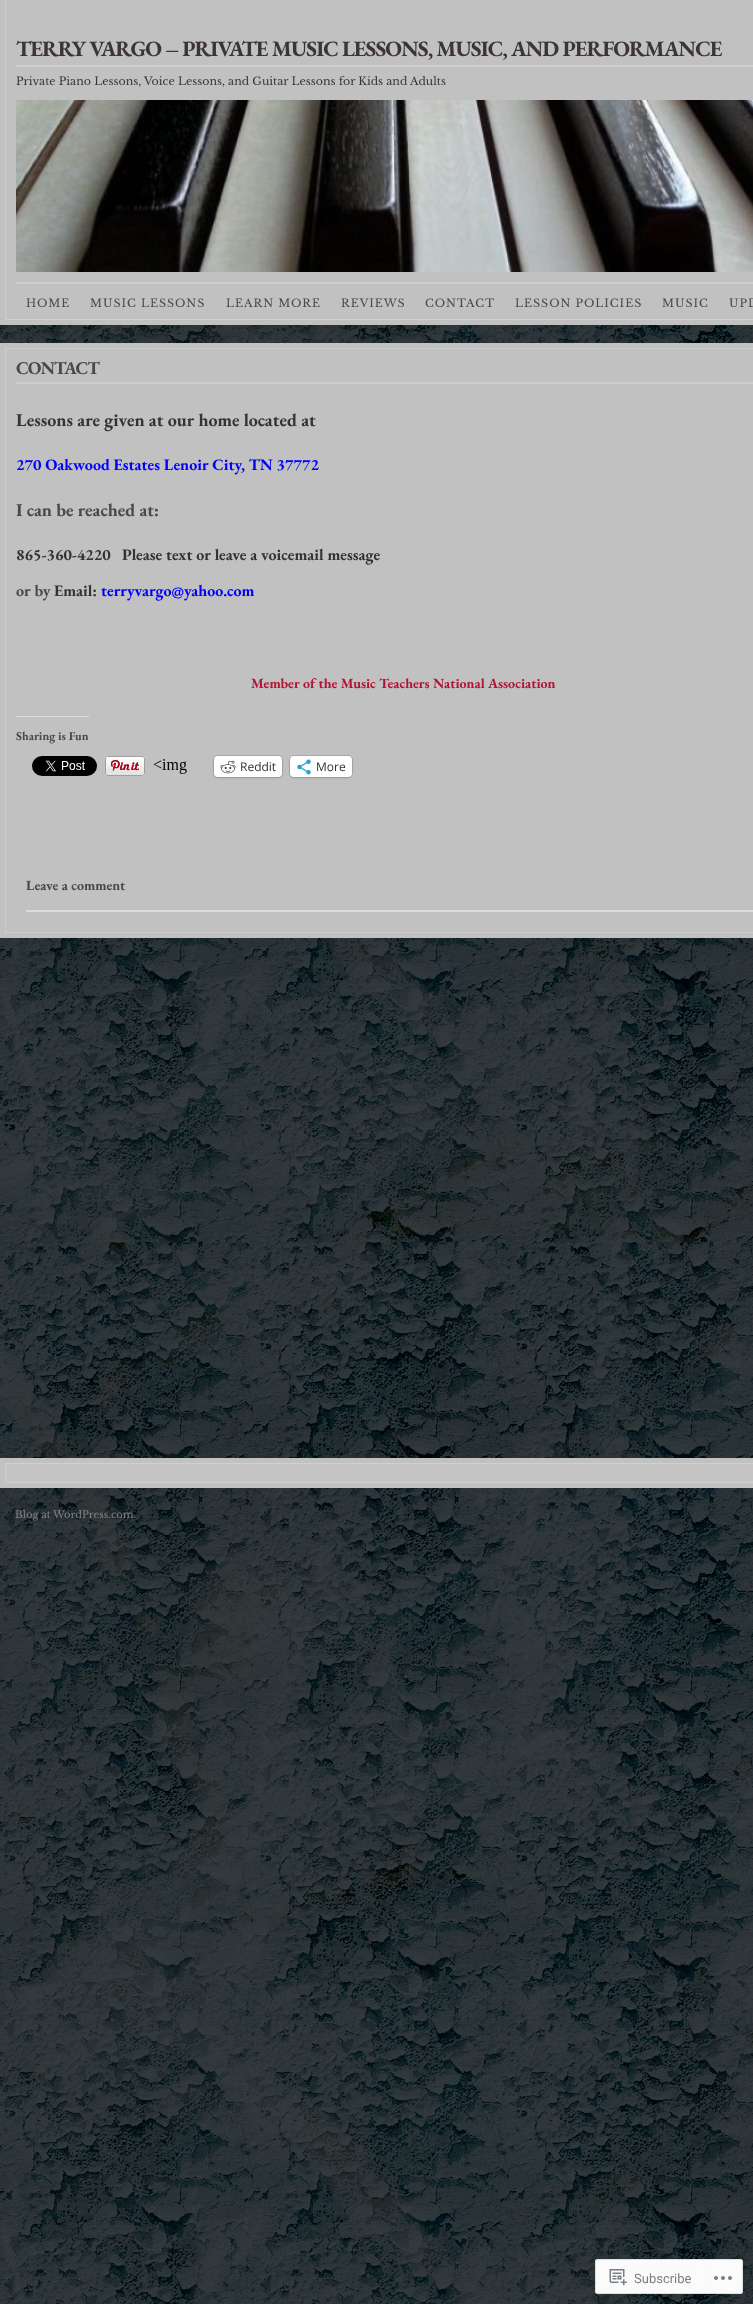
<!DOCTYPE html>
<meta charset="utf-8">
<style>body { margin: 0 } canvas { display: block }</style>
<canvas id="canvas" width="753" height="2304"></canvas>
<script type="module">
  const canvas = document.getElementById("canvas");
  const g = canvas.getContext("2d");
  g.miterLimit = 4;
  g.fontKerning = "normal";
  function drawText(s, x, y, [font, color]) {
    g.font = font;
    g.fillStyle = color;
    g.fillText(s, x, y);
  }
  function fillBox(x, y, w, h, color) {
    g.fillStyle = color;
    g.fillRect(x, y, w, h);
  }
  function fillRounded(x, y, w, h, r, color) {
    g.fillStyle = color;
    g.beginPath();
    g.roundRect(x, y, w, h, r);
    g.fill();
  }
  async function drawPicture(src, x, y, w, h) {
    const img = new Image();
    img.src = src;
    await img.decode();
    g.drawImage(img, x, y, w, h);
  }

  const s1 = ["bold 22px EB Garamond", "#3D3535"];
  const s2 = ["11px Libre Baskerville", "#3D3535"];
  const s3 = ["11px Libre Baskerville", "#494949"];
  const s4 = ["bold 18px EB Garamond", "#494949"];
  const s5 = ["bold 18px EB Garamond", "#333333"];
  const s6 = ["bold 16px EB Garamond", "#0000FF"];
  const s7 = ["bold 16px EB Garamond", "#333333"];
  const s8 = ["bold 16px EB Garamond", "#494949"];
  const s9 = ["bold 14px EB Garamond", "#B31232"];
  const s10 = ["bold 12px EB Garamond", "#494949"];
  const s11 = ["12px Open Sans", "#2C3338"];
  const s12 = ["bold 14px EB Garamond", "#494949"];
  const s13 = ["10px Libre Baskerville", "#828282"];
  const s14 = ["13px Roboto", "#7B7F84"];

  fillBox(0, 0, 753, 2304, "#FFFFFF");
  await drawPicture("pic1.png", 0, 325, 753, 1979);
  fillBox(0, 0, 753, 325, "#C1C1C1");
  g.fillStyle = "#CFCFCF";
  g.beginPath();
  g.moveTo(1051, 320);
  g.lineTo(5, 320);
  g.lineTo(6, 319);
  g.lineTo(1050, 319);
  g.closePath();
  g.fill();
  g.fillStyle = "rgba(255, 255, 255, 0.2)";
  g.beginPath();
  g.moveTo(5, 320);
  g.lineTo(5, 0);
  g.lineTo(6, 0);
  g.lineTo(6, 319);
  g.closePath();
  g.fill();
  fillBox(16, 65, 737, 2, "#CFCFCF");
  g.letterSpacing = "-1px";
  drawText("TERRY VARGO – PRIVATE MUSIC LESSONS, MUSIC, AND PERFORMANCE", 16, 56, s1);
  g.letterSpacing = "0px";
  drawText("Private Piano Lessons, Voice Lessons, and Guitar Lessons for Kids and Adults", 16, 85, s2);
  await drawPicture("pic2.png", 16, 100, 737, 172);
  fillBox(16, 282, 737, 2, "#CFCFCF");
  g.letterSpacing = "1px";
  drawText("HOME", 26, 307, s3);
  drawText("MUSIC LESSONS", 90, 307, s3);
  drawText("LEARN MORE", 226, 307, s3);
  drawText("REVIEWS", 341, 307, s3);
  drawText("CONTACT", 425, 307, s3);
  drawText("LESSON POLICIES", 515, 307, s3);
  drawText("MUSIC", 662, 307, s3);
  drawText("UPD", 729, 307, s3);
  fillBox(0, 343, 753, 595, "#C1C1C1");
  g.strokeStyle = "#CDCDCD";
  g.strokeRect(5.5, 348.5, 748, 584);
  fillBox(16, 382, 737, 2, "#CDCDCD");
  g.letterSpacing = "-1px";
  drawText("CONTACT", 16, 374, s4);
  g.letterSpacing = "0px";
  drawText("Lessons are given at our home located at", 16, 426, s5);
  drawText("270 Oakwood Estates Lenoir City, TN 37772", 16, 470, s6);
  drawText("I can be reached at:", 16, 516, s4);
  drawText("865-360-4220", 16, 560, s7);
  drawText("Please text or leave a voicemail message", 122, 560, s7);
  drawText("or by", 16, 596, s8);
  drawText("Email:", 54, 596, s7);
  drawText("terryvargo@yahoo.com", 101, 596, s6);
  drawText("Member of the Music Teachers National Association", 251, 688, s9);
  fillBox(16, 716, 73, 1, "#DCDCDE");
  drawText("Sharing is Fun", 16, 740, s10);
  await drawPicture("pic3.png", 32, 756, 65, 20);
  await drawPicture("pic4.png", 105, 756, 40, 20);
  await drawPicture("pic5.png", 153, 759, 34, 15);
  g.beginPath();
  g.roundRect(213.5, 755.5, 69, 22, 4.5);
  g.strokeStyle = "#AAAAAA";
  g.stroke();
  g.fillStyle = "rgba(0, 0, 0, 0.12)";
  g.filter = "blur(1px)";
  g.beginPath();
  g.roundRect(214, 757, 68, 21, 4);
  g.fill();
  g.filter = "none";
  fillRounded(214, 756, 68, 21, 4, "#FFFFFF");
  await drawPicture("pic6.png", 220, 760, 16, 14);
  drawText("Reddit", 240, 771, s11);
  g.beginPath();
  g.roundRect(289.5, 755.5, 63, 22, 4.5);
  g.stroke();
  g.fillStyle = "rgba(0, 0, 0, 0.12)";
  g.filter = "blur(1px)";
  g.beginPath();
  g.roundRect(290, 757, 62, 21, 4);
  g.fill();
  g.filter = "none";
  fillRounded(290, 756, 62, 21, 4, "#FFFFFF");
  await drawPicture("pic7.png", 297, 759, 14, 16);
  drawText("More", 316, 771, s11);
  drawText("Leave a comment", 26, 890, s12);
  fillBox(26, 910, 727, 2, "#DCDCDE");
  fillBox(0, 1458, 753, 30, "#C1C1C1");
  g.fillStyle = "#C4C4C4";
  g.beginPath();
  g.rect(5.5, 1463.5, 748, 19);
  g.fill();
  g.strokeStyle = "#D0D0D0";
  g.stroke();
  drawText("Blog at WordPress.com.", 15, 1518, s13);
  fillRounded(595, 2259, 148, 35, 3, "rgba(255, 255, 255, 0.98)");
  g.beginPath();
  g.roundRect(595.5, 2259.5, 147, 34, 2.5);
  g.strokeStyle = "rgba(220, 220, 222, 0.98)";
  g.stroke();
  await drawPicture("pic8.png", 609, 2269, 18, 17);
  drawText("Subscribe", 634, 2283, s14);
  await drawPicture("pic9.png", 714, 2276, 18, 4);
</script>
